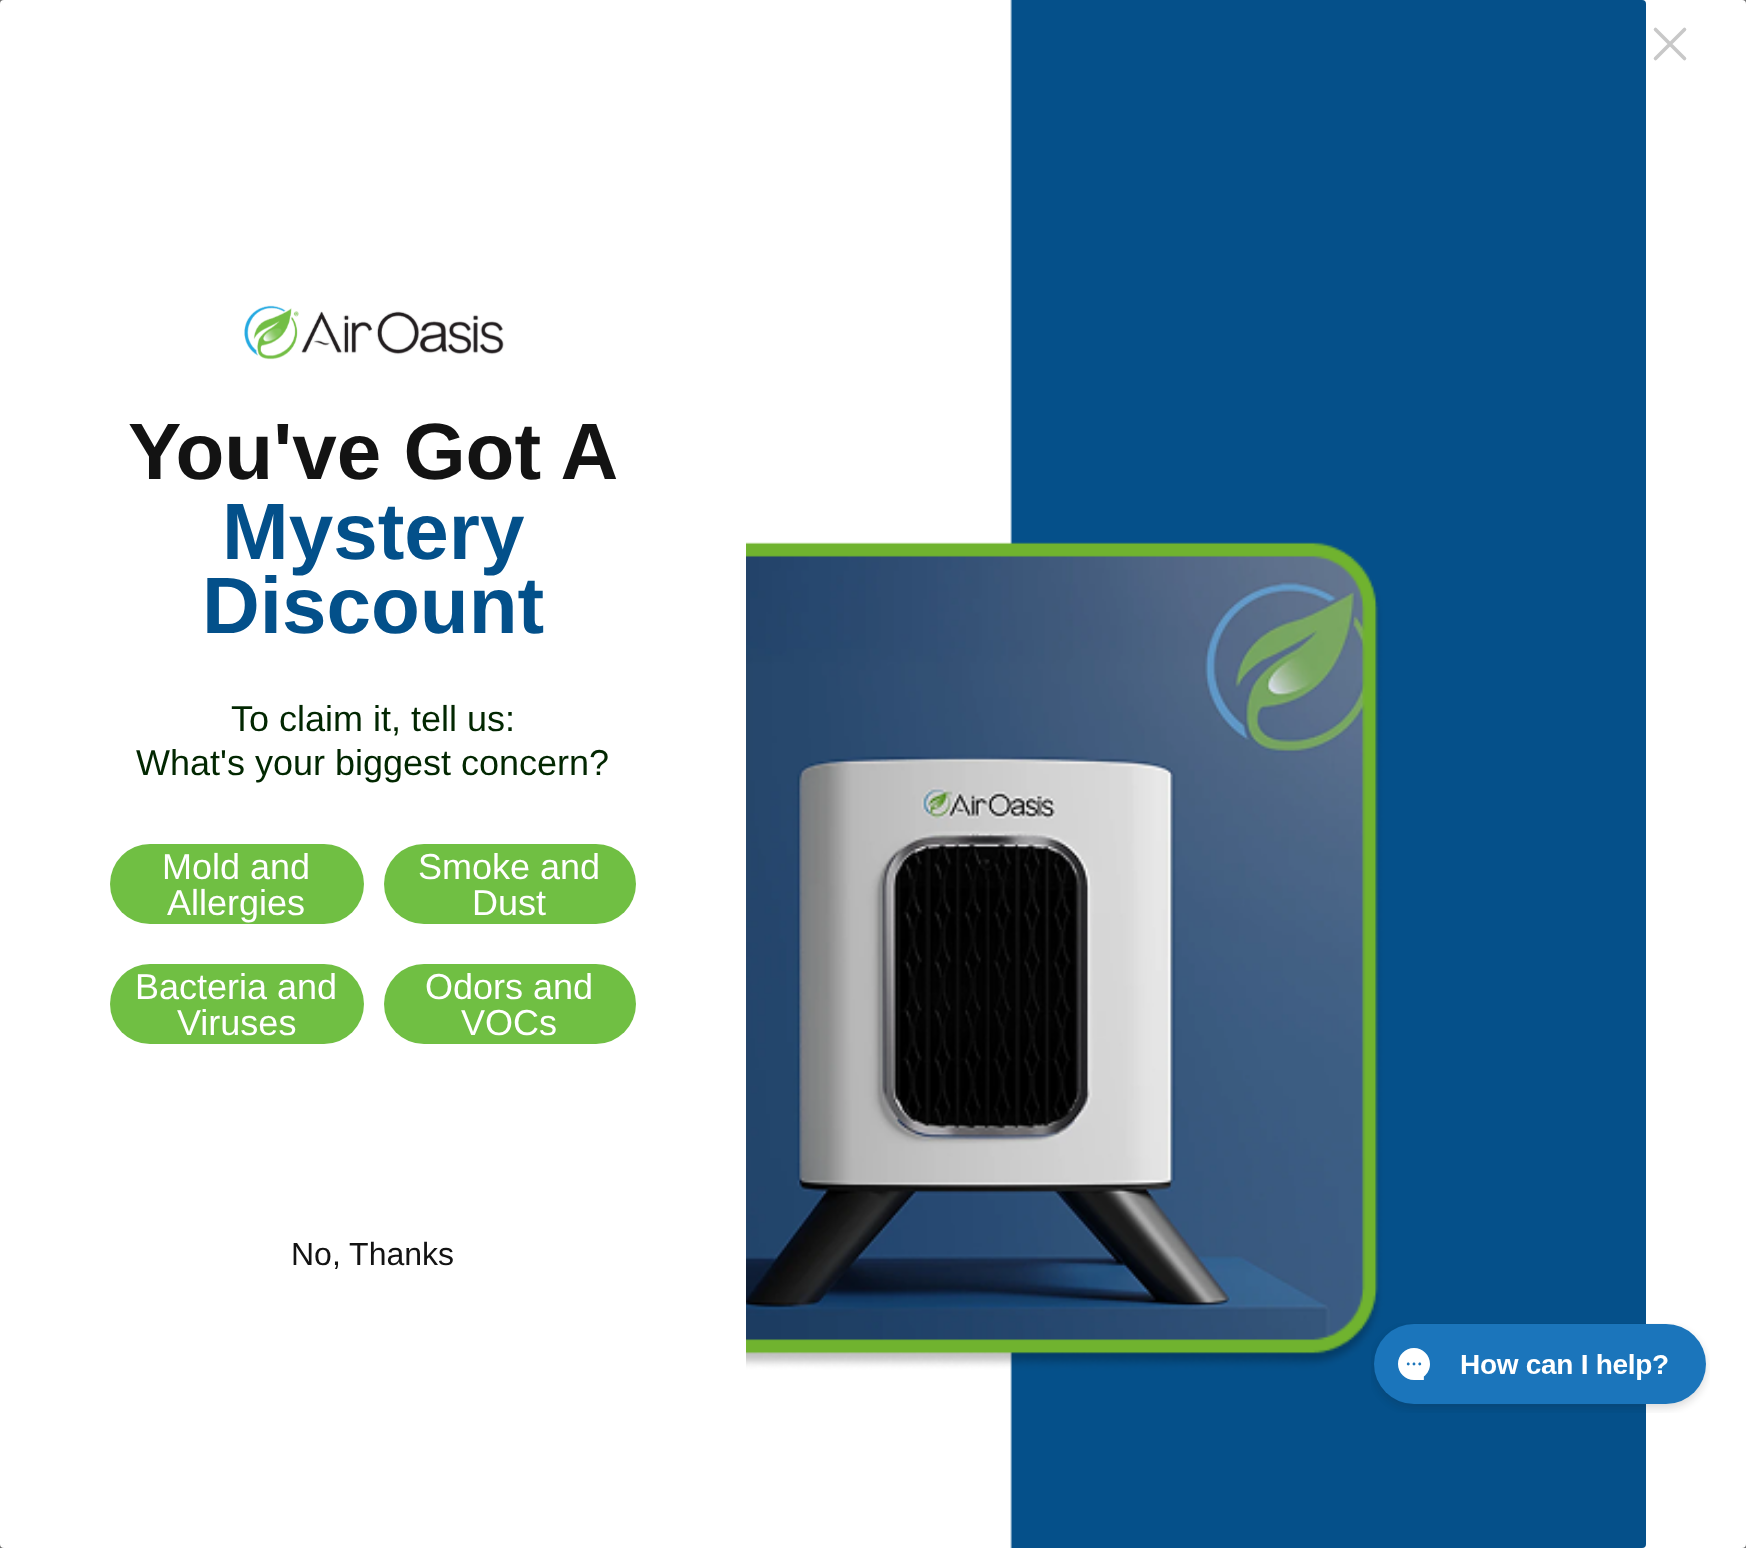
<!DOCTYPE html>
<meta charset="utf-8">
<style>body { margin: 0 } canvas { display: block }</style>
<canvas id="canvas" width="1746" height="1548"></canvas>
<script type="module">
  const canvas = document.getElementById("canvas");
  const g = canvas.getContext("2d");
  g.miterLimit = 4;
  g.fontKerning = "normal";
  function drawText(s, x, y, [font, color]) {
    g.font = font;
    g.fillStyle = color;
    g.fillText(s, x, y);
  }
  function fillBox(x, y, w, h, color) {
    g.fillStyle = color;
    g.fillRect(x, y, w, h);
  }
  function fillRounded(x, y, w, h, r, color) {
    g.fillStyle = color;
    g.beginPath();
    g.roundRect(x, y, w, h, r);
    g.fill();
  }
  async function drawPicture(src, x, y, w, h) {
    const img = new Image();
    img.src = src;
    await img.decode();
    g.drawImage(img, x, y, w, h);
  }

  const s1 = ["bold 80px Liberation Sans", "#131313"];
  const s2 = ["bold 80px Liberation Sans", "#03508A"];
  const s3 = ["36px Liberation Sans", "#022701"];
  const s4 = ["36px Liberation Sans", "#FFFFFF"];
  const s5 = ["32px Liberation Sans", "#131313"];

  fillBox(0, 0, 1746, 1548, "#6E6E6E");
  fillBox(0, 0, 1746, 4, "#727272");
  g.fillStyle = "rgba(0, 0, 0, 0.15)";
  g.filter = "blur(30px)";
  g.beginPath();
  g.roundRect(0, 0, 1746, 1548, 4);
  g.fill();
  g.filter = "none";
  fillRounded(0, 0, 1746, 1548, 4, "#FFFFFF");
  g.beginPath();
  g.moveTo(1655.5, 29.5);
  g.lineTo(1684.5, 58.5);
  g.moveTo(1655.5, 58.5);
  g.lineTo(1684.5, 29.5);
  g.closePath();
  g.strokeStyle = "#C8C8C8";
  g.lineWidth = 3.6;
  g.lineCap = "round";
  g.lineJoin = "round";
  g.stroke();
  await drawPicture("pic1.png", 244, 305, 261, 55);
  drawText("You've Got A", 128, 479, s1);
  drawText("Mystery", 222, 559, s2);
  drawText("Discount", 202, 633, s2);
  drawText("To claim it, tell us:", 231, 731, s3);
  drawText("What's your biggest concern?", 136, 775, s3);
  fillRounded(110, 844, 254, 80, 40, "#70BF43");
  drawText("Mold and", 162, 879, s4);
  drawText("Allergies", 167, 915, s4);
  fillRounded(384, 844, 252, 80, 40, "#70BF43");
  drawText("Smoke and", 418, 879, s4);
  drawText("Dust", 472, 915, s4);
  fillRounded(110, 964, 254, 80, 40, "#70BF43");
  drawText("Bacteria and", 135, 999, s4);
  drawText("Viruses", 177, 1035, s4);
  fillRounded(384, 964, 252, 80, 40, "#70BF43");
  drawText("Odors and", 425, 999, s4);
  drawText("VOCs", 461, 1035, s4);
  drawText("No, Thanks", 291, 1265, s5);
  await drawPicture("pic2.png", 746, 0, 900, 1548);
  await drawPicture("pic3.png", 1371, 1323, 339, 90);
</script>
